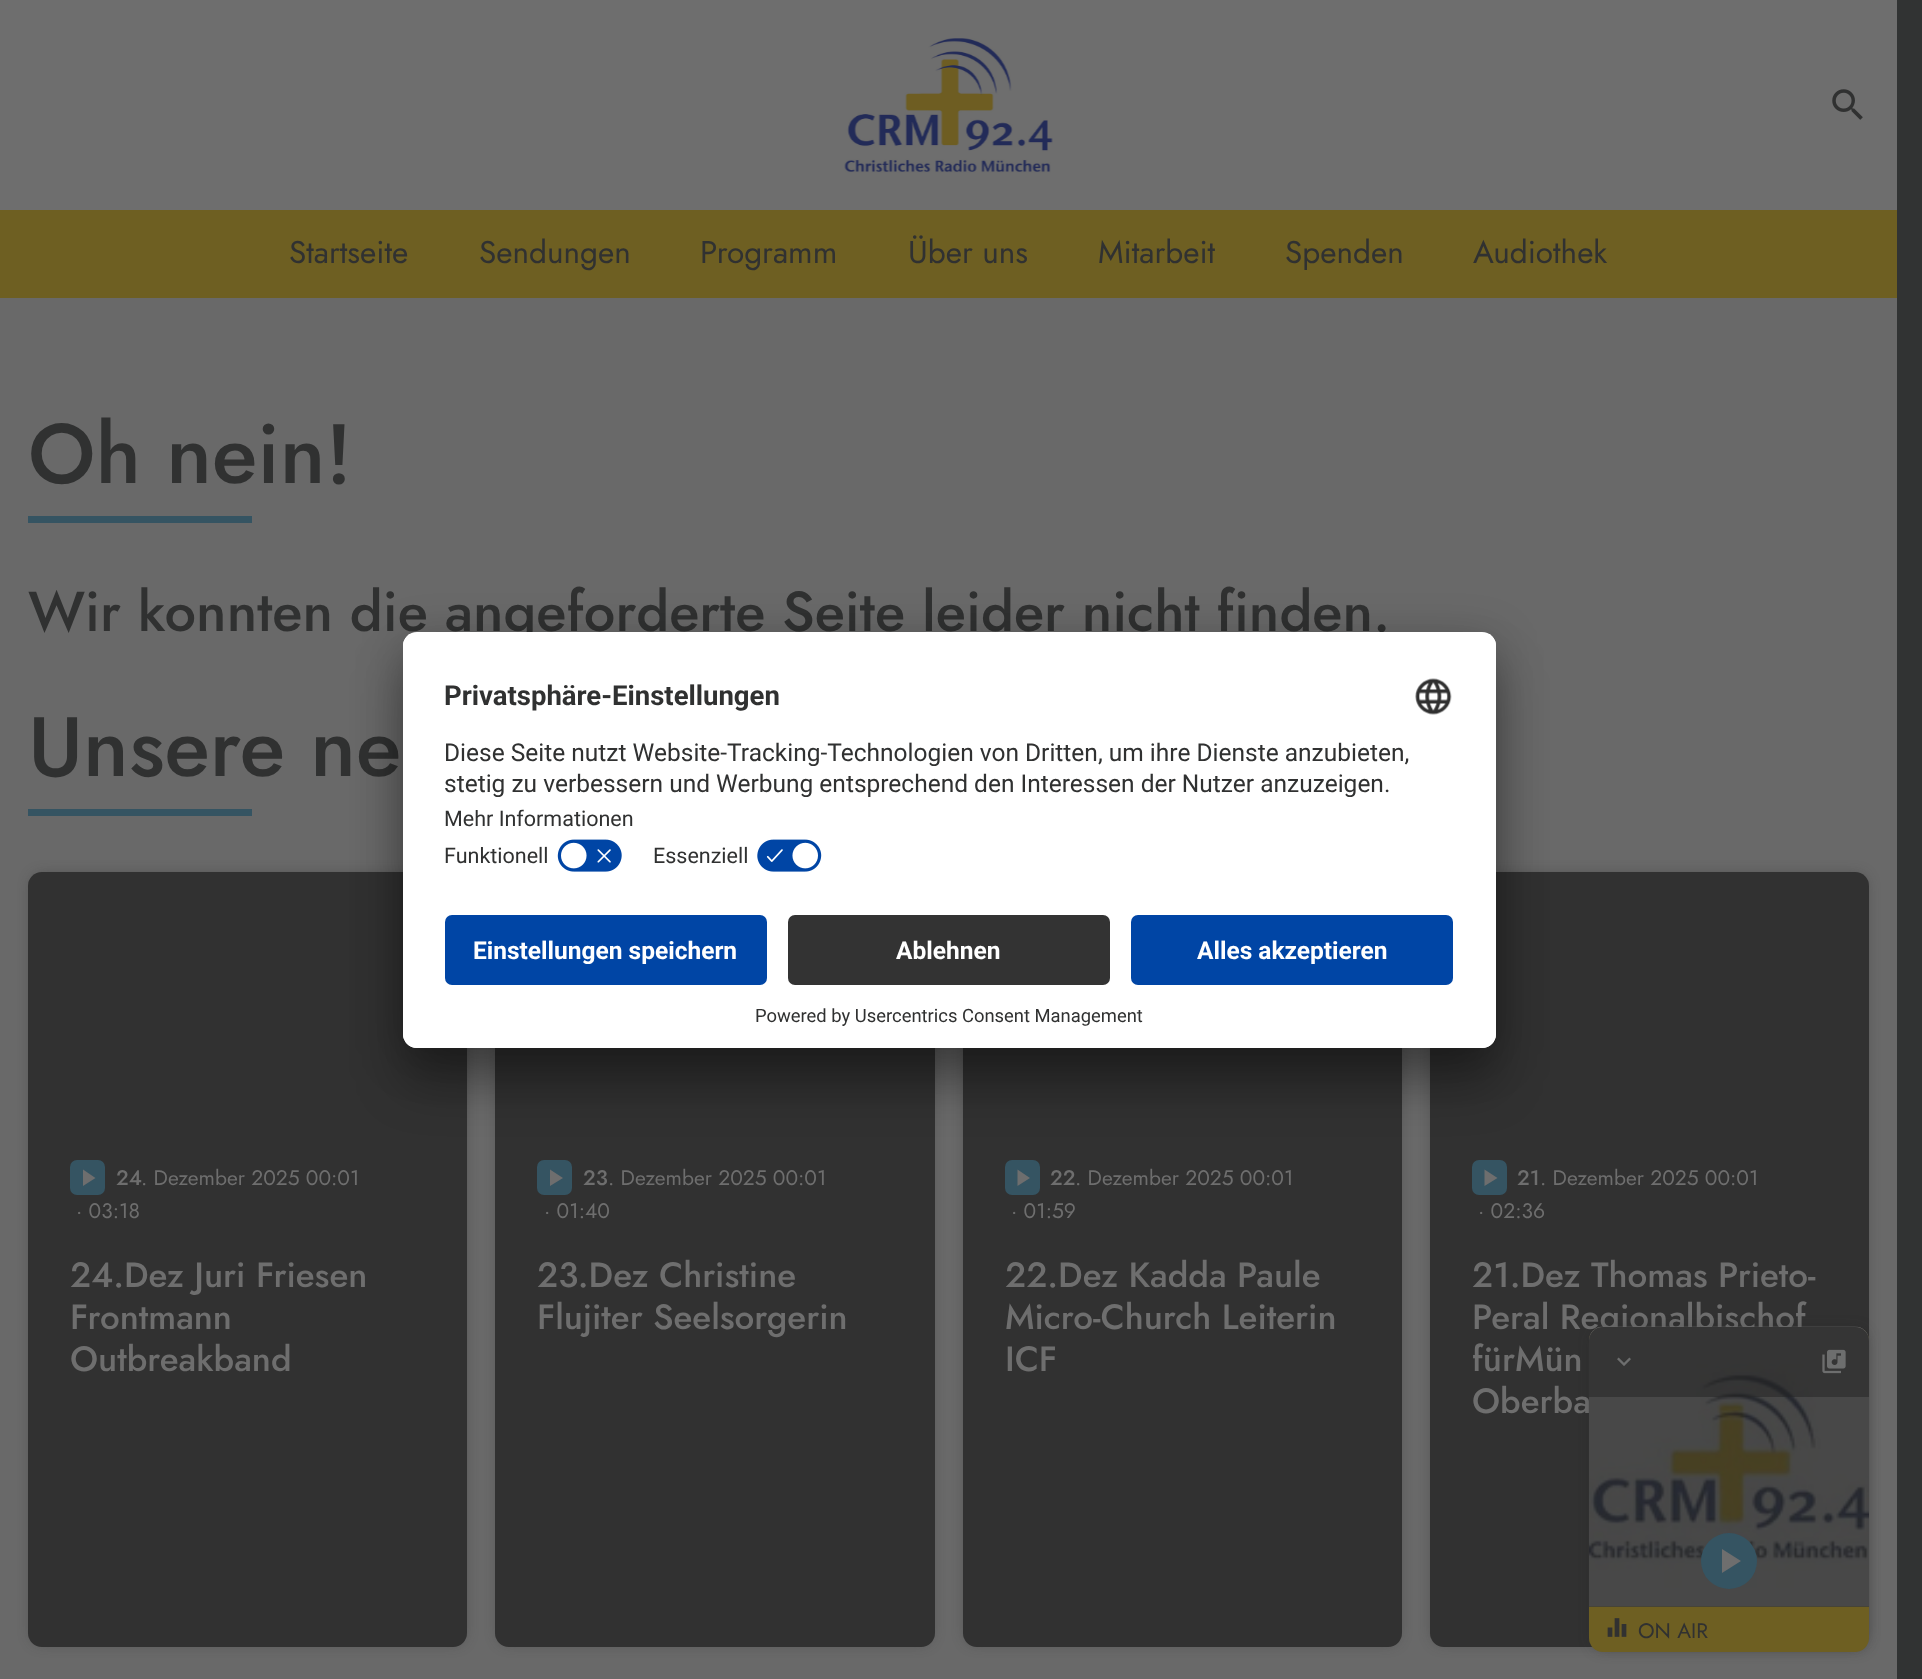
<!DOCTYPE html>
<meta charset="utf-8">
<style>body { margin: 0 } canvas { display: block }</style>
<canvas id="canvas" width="1922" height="1679"></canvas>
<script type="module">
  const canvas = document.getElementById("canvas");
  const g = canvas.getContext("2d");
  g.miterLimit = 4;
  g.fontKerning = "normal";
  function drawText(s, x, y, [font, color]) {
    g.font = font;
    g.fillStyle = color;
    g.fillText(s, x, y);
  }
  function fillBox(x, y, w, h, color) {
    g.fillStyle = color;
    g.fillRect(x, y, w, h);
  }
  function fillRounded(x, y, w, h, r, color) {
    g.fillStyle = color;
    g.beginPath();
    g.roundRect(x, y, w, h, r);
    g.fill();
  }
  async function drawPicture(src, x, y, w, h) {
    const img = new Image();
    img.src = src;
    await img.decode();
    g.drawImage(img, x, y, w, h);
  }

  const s1 = ["31.5px Jost", "#303131"];
  const s2 = ["500 84px Jost", "#303131"];
  const s3 = ["500 56px Jost", "#303131"];
  const s4 = ["500 21px Jost", "#6E6E6E"];
  const s5 = ["21px Jost", "#6E6E6E"];
  const s6 = ["500 35px Jost", "#6E6E6E"];
  const s7 = ["21px Jost", "#303131"];
  const s8 = ["bold 27.5px Roboto", "#303131"];
  const s9 = ["24.5px Roboto", "#303131"];
  const s10 = ["21.5px Roboto", "#303131"];
  const s11 = ["bold 24.5px Roboto", "#FFFFFF"];
  const s12 = ["18.4px Roboto", "#303131"];

  fillBox(0, 0, 1922, 1679, "#313333");
  fillBox(0, 0, 1897, 210, "#6E6E6E");
  await drawPicture("pic1.png", 844, 38, 209, 135);
  await drawPicture("pic2.png", 1832, 89, 31, 31);
  fillBox(0, 210, 1897, 88, "#6E5F22");
  drawText("Startseite", 289, 263, s1);
  drawText("Sendungen", 479, 263, s1);
  drawText("Programm", 700, 263, s1);
  drawText("Über uns", 908, 263, s1);
  drawText("Mitarbeit", 1098, 263, s1);
  drawText("Spenden", 1285, 263, s1);
  drawText("Audiothek", 1473, 263, s1);
  fillBox(0, 298, 1897, 1381, "#696969");
  drawText("Oh nein!", 28, 483, s2);
  fillBox(28, 516, 224, 7, "#355462");
  drawText("Wir konnten die angeforderte Seite leider nicht finden.", 28, 631, s3);
  drawText("Unsere ne", 28, 776, s2);
  fillBox(28, 809, 224, 7, "#355462");
  g.fillStyle = "rgba(34, 34, 34, 0.4)";
  g.filter = "blur(7px)";
  g.beginPath();
  g.roundRect(32, 875, 432, 768, 11);
  g.fill();
  g.filter = "none";
  fillRounded(28, 872, 439, 775, 14, "#313131");
  fillRounded(70, 1160, 35, 35, 7, "#355462");
  g.fillStyle = "#6E6E6E";
  g.beginPath();
  g.moveTo(83, 1169.5);
  g.lineTo(95.5, 1178);
  g.lineTo(83, 1186);
  g.closePath();
  g.fill();
  drawText("24", 116, 1185, s4);
  drawText(". Dezember 2025 00:01", 141, 1185, s5);
  drawText("· 03:18", 76, 1218, s5);
  drawText("24.Dez Juri Friesen", 70, 1287, s6);
  drawText("Frontmann", 70, 1329, s6);
  drawText("Outbreakband", 70, 1371, s6);
  g.fillStyle = "rgba(34, 34, 34, 0.4)";
  g.filter = "blur(7px)";
  g.beginPath();
  g.roundRect(499, 875, 432, 768, 11);
  g.fill();
  g.filter = "none";
  fillRounded(495, 872, 440, 775, 14, "#313131");
  fillRounded(537, 1160, 35, 35, 7, "#355462");
  g.fillStyle = "#6E6E6E";
  g.beginPath();
  g.moveTo(550, 1169.5);
  g.lineTo(563, 1178);
  g.lineTo(550, 1186);
  g.closePath();
  g.fill();
  drawText("23", 583, 1185, s4);
  drawText(". Dezember 2025 00:01", 608, 1185, s5);
  drawText("· 01:40", 544, 1218, s5);
  drawText("23.Dez Christine", 537, 1287, s6);
  drawText("Flujiter Seelsorgerin", 537, 1329, s6);
  g.fillStyle = "rgba(34, 34, 34, 0.4)";
  g.filter = "blur(7px)";
  g.beginPath();
  g.roundRect(966, 875, 432, 768, 11);
  g.fill();
  g.filter = "none";
  fillRounded(963, 872, 439, 775, 14, "#313131");
  fillRounded(1005, 1160, 35, 35, 7, "#355462");
  g.fillStyle = "#6E6E6E";
  g.beginPath();
  g.moveTo(1017.5, 1169.5);
  g.lineTo(1030, 1178);
  g.lineTo(1017.5, 1186);
  g.closePath();
  g.fill();
  drawText("22", 1050, 1185, s4);
  drawText(". Dezember 2025 00:01", 1075, 1185, s5);
  drawText("· 01:59", 1011, 1218, s5);
  drawText("22.Dez Kadda Paule", 1005, 1287, s6);
  drawText("Micro-Church Leiterin", 1005, 1329, s6);
  drawText("ICF", 1005, 1371, s6);
  g.fillStyle = "rgba(34, 34, 34, 0.4)";
  g.filter = "blur(7px)";
  g.beginPath();
  g.roundRect(1433, 875, 433, 768, 11);
  g.fill();
  g.filter = "none";
  fillRounded(1430, 872, 439, 775, 14, "#313131");
  fillRounded(1472, 1160, 35, 35, 7, "#355462");
  g.fillStyle = "#6E6E6E";
  g.beginPath();
  g.moveTo(1484.5, 1169.5);
  g.lineTo(1497.5, 1178);
  g.lineTo(1484.5, 1186);
  g.closePath();
  g.fill();
  drawText("21", 1517, 1185, s4);
  drawText(". Dezember 2025 00:01", 1540, 1185, s5);
  drawText("· 02:36", 1478, 1218, s5);
  drawText("21.Dez Thomas Prieto-", 1472, 1287, s6);
  drawText("Peral Regionalbischof", 1472, 1329, s6);
  drawText("fürMün", 1472, 1371, s6);
  drawText("Oberba", 1472, 1413, s6);
  g.fillStyle = "rgba(34, 34, 34, 0.4)";
  g.filter = "blur(7px)";
  g.beginPath();
  g.roundRect(1593, 1330, 273, 319, 11);
  g.fill();
  g.filter = "none";
  g.fillStyle = "#6E5F22";
  g.beginPath();
  g.roundRect(1589, 1327, 280, 280, [14, 14, 0, 0]);
  g.fill();
  g.fillStyle = "rgba(110, 110, 110, 0.1)";
  g.beginPath();
  g.roundRect(1589, 1327, 280, 280, [14, 14, 0, 0]);
  g.fill();
  await drawPicture("pic3.png", 1589, 1326, 280, 281);
  g.fillStyle = "rgba(34, 34, 34, 0.5)";
  g.beginPath();
  g.roundRect(1589, 1327, 280, 280, [14, 14, 0, 0]);
  g.fill();
  g.fillStyle = "#355462";
  g.beginPath();
  g.arc(1729, 1561, 28, 0, Math.PI * 2);
  g.fill();
  g.fillStyle = "#6E6E6E";
  g.beginPath();
  g.moveTo(1722, 1549);
  g.lineTo(1741, 1561);
  g.lineTo(1722, 1573);
  g.closePath();
  g.fill();
  g.fillStyle = "rgba(34, 34, 34, 0.5)";
  g.beginPath();
  g.roundRect(1589, 1327, 280, 70, [14, 14, 0, 0]);
  g.fill();
  await drawPicture("pic4.png", 1617, 1357, 14, 9);
  await drawPicture("pic5.png", 1822, 1349, 24, 25);
  g.fillStyle = "#6E5F22";
  g.beginPath();
  g.roundRect(1589, 1607, 280, 45, [0, 0, 14, 14]);
  g.fill();
  await drawPicture("pic6.png", 1607, 1618, 20, 19);
  drawText("ON AIR", 1638, 1638, s7);
  g.fillStyle = "rgba(0, 0, 0, 0.3)";
  g.filter = "blur(24.5px)";
  g.beginPath();
  g.roundRect(403, 667, 1093, 416, 14);
  g.fill();
  g.filter = "none";
  g.fillStyle = "rgba(0, 0, 0, 0.22)";
  g.filter = "blur(23px)";
  g.beginPath();
  g.roundRect(403, 641, 1093, 416, 14);
  g.fill();
  g.filter = "none";
  fillRounded(403, 632, 1093, 416, 14, "#FFFFFF");
  g.save();
  g.beginPath();
  g.roundRect(403, 632, 1093, 416, 14);
  g.clip();
  g.beginPath();
  g.roundRect(403, 632, 1093, 269, [14, 14, 0, 0]);
  g.clip();
  fillBox(403, 634, 1093, 267, "#FFFFFF");
  fillBox(403, 634, 1093, 197, "#FFFFFF");
  g.restore();
  drawText("Privatsphäre-Einstellungen", 444, 705, s8);
  await drawPicture("pic7.png", 1415, 678, 37, 37);
  drawText("Diese Seite nutzt Website-Tracking-Technologien von Dritten, um ihre Dienste anzubieten,", 444, 761, s9);
  drawText("stetig zu verbessern und Werbung entsprechend den Interessen der Nutzer anzuzeigen.", 444, 792, s9);
  drawText("Mehr Informationen", 444, 826, s10);
  drawText("Funktionell", 444, 863, s10);
  await drawPicture("pic8.png", 557, 839, 65, 33);
  drawText("Essenziell", 653, 863, s10);
  await drawPicture("pic9.png", 757, 839, 65, 33);
  g.fillStyle = "#FFFFFF";
  g.beginPath();
  g.roundRect(403, 901, 1093, 147, [0, 0, 14, 14]);
  g.fill();
  fillRounded(445, 915, 322, 70, 7, "#0045A5");
  drawText("Einstellungen speichern", 473, 959, s11);
  fillRounded(788, 915, 322, 70, 7, "#333333");
  drawText("Ablehnen", 896, 959, s11);
  fillRounded(1131, 915, 322, 70, 7, "#0045A5");
  drawText("Alles akzeptieren", 1197, 959, s11);
  drawText("Powered by Usercentrics Consent Management", 755, 1022, s12);
</script>
